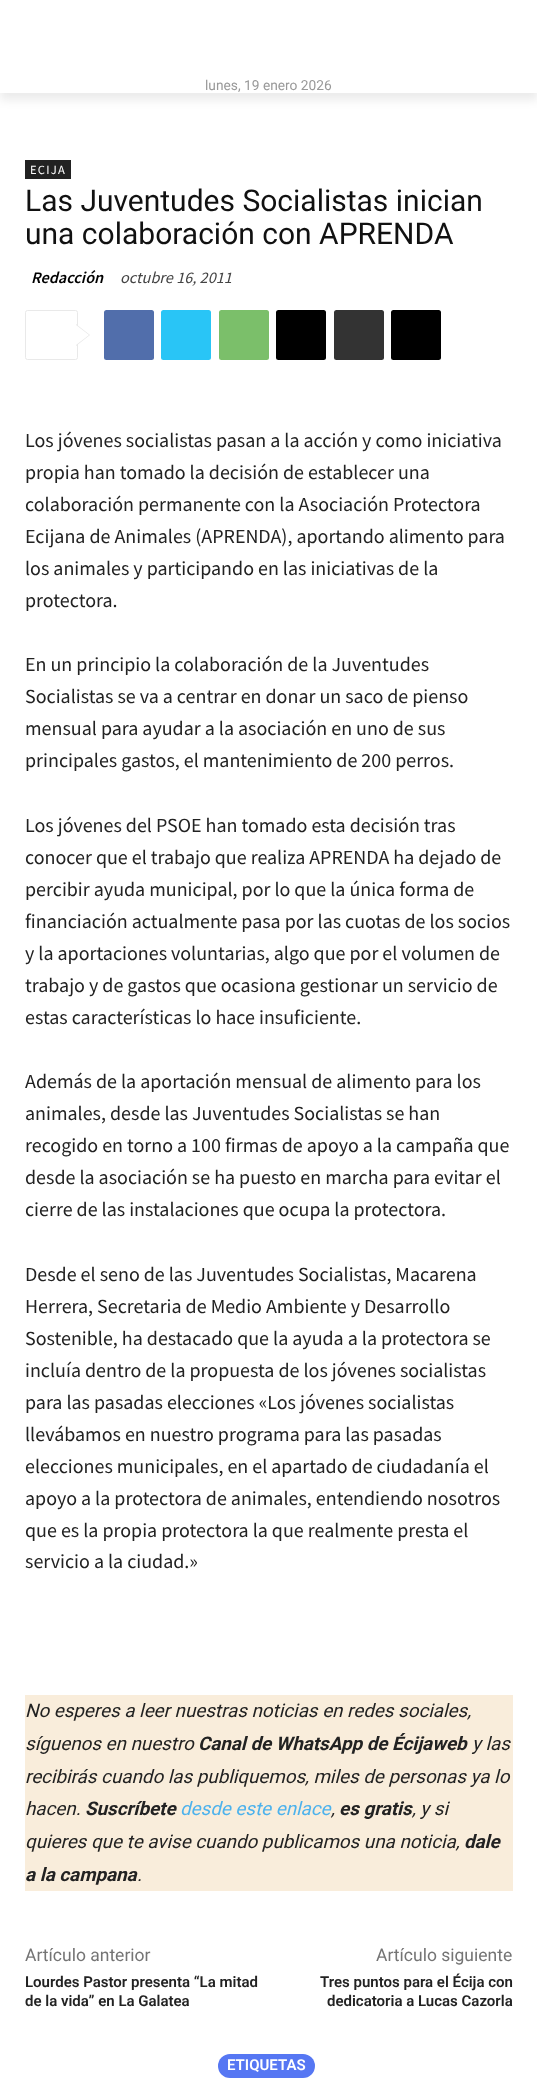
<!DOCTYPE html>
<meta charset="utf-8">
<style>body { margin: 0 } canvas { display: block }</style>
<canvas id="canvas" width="537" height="2082"></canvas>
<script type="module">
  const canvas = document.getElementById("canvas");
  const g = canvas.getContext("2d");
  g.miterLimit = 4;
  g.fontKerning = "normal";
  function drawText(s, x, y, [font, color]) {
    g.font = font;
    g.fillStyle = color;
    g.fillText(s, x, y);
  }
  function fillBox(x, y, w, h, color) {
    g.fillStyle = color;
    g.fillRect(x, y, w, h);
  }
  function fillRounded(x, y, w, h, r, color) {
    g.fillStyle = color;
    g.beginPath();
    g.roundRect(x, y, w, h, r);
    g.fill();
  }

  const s1 = ["13.75px Roboto", "#999999"];
  const s2 = ["12.5px Source Sans Pro", "#FFFFFF"];
  const s3 = ["30px Roboto", "#111111"];
  const s4 = ["italic 600 16.25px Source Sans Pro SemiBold", "#000000"];
  const s5 = ["italic 16.25px Source Sans Pro", "#444444"];
  const s6 = ["20px Source Sans Pro", "#222222"];
  const s7 = ["italic 18.75px Roboto", "#222222"];
  const s8 = ["italic bold 18.75px Roboto", "#222222"];
  const s9 = ["italic 18.75px Roboto", "#4DB2EC"];
  const s10 = ["17.5px Roboto", "#747474"];
  const s11 = ["600 15px Roboto", "#222222"];
  const s12 = ["600 15px Roboto", "#FFFFFF"];

  fillBox(0, 0, 537, 2082, "#FFFFFF");
  g.save();
  g.beginPath();
  g.moveTo(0, 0);
  g.lineTo(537, 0);
  g.lineTo(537, 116);
  g.lineTo(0, 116);
  g.closePath();
  g.moveTo(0, 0);
  g.lineTo(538, 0);
  g.lineTo(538, 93);
  g.lineTo(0, 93);
  g.closePath();
  g.clip("evenodd");
  g.fillStyle = "rgba(0, 0, 0, 0.08)";
  g.filter = "blur(5px)";
  g.beginPath();
  g.rect(0, 8, 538, 92);
  g.fill();
  g.filter = "none";
  g.restore();
  drawText("lunes, 19 enero 2026", 205, 90, s1);
  fillBox(25, 160, 46, 19, "#222222");
  g.letterSpacing = "1.25px";
  drawText("ECIJA", 30, 174, s2);
  g.letterSpacing = "0px";
  drawText("Las Juventudes Socialistas inician", 25, 211, s3);
  drawText("una colaboración con APRENDA", 25, 244, s3);
  drawText("Redacción", 31, 283, s4);
  drawText("octubre 16, 2011", 120, 283, s5);
  g.beginPath();
  g.roundRect(25.5, 310.5, 52, 49, 2);
  g.strokeStyle = "#E9E9E9";
  g.stroke();
  g.fillStyle = "#E9E9E9";
  g.beginPath();
  g.moveTo(76, 346);
  g.lineTo(76, 324);
  g.lineTo(90, 335);
  g.closePath();
  g.fill();
  g.fillStyle = "#FFFFFF";
  g.beginPath();
  g.moveTo(76, 345);
  g.lineTo(76, 325);
  g.lineTo(89, 335);
  g.closePath();
  g.fill();
  fillRounded(104, 310, 50, 50, 2.5, "#516EAB");
  fillRounded(161, 310, 50, 50, 2.5, "#29C5F6");
  fillRounded(219, 310, 50, 50, 2.5, "#7BBF6A");
  fillRounded(276, 310, 50, 50, 2.5, "#000000");
  fillRounded(334, 310, 50, 50, 2.5, "#333333");
  fillRounded(391, 310, 50, 50, 2.5, "#000000");
  drawText("Los jóvenes socialistas pasan a la acción y como iniciativa", 25, 447, s6);
  drawText("propia han tomado la decisión de establecer una", 25, 479, s6);
  drawText("colaboración permanente con la Asociación Protectora", 25, 511, s6);
  drawText("Ecijana de Animales (APRENDA), aportando alimento para", 25, 543, s6);
  drawText("los animales y participando en las iniciativas de la", 25, 575, s6);
  drawText("protectora.", 25, 607, s6);
  drawText("En un principio la colaboración de la Juventudes", 25, 671, s6);
  drawText("Socialistas se va a centrar en donar un saco de pienso", 25, 703, s6);
  drawText("mensual para ayudar a la asociación en uno de sus", 25, 735, s6);
  drawText("principales gastos, el mantenimiento de 200 perros.", 25, 767, s6);
  drawText("Los jóvenes del PSOE han tomado esta decisión tras", 25, 832, s6);
  drawText("conocer que el trabajo que realiza APRENDA ha dejado de", 25, 864, s6);
  drawText("percibir ayuda municipal, por lo que la única forma de", 25, 896, s6);
  drawText("financiación actualmente pasa por las cuotas de los socios", 25, 928, s6);
  drawText("y la aportaciones voluntarias, algo que por el volumen de", 25, 960, s6);
  drawText("trabajo y de gastos que ocasiona gestionar un servicio de", 25, 992, s6);
  drawText("estas características lo hace insuficiente.", 25, 1024, s6);
  drawText("Además de la aportación mensual de alimento para los", 25, 1088, s6);
  drawText("animales, desde las Juventudes Socialistas se han", 25, 1120, s6);
  drawText("recogido en torno a 100 firmas de apoyo a la campaña que", 25, 1152, s6);
  drawText("desde la asociación se ha puesto en marcha para evitar el", 25, 1184, s6);
  drawText("cierre de las instalaciones que ocupa la protectora.", 25, 1216, s6);
  drawText("Desde el seno de las Juventudes Socialistas, Macarena", 25, 1281, s6);
  drawText("Herrera, Secretaria de Medio Ambiente y Desarrollo", 25, 1313, s6);
  drawText("Sostenible, ha destacado que la ayuda a la protectora se", 25, 1345, s6);
  drawText("incluía dentro de la propuesta de los jóvenes socialistas", 25, 1377, s6);
  drawText("para las pasadas elecciones «Los jóvenes socialistas", 25, 1409, s6);
  drawText("llevábamos en nuestro programa para las pasadas", 25, 1441, s6);
  drawText("elecciones municipales, en el apartado de ciudadanía el", 25, 1473, s6);
  drawText("apoyo a la protectora de animales, entendiendo nosotros", 25, 1505, s6);
  drawText("que es la propia protectora la que realmente presta el", 25, 1537, s6);
  drawText("servicio a la ciudad.»", 25, 1568, s6);
  fillBox(25, 1695, 488, 196, "#F9EDDB");
  drawText("No esperes a leer nuestras noticias en redes sociales,", 25, 1717, s7);
  drawText("síguenos en nuestro", 25, 1750, s7);
  drawText("Canal de WhatsApp de Écijaweb", 198, 1750, s8);
  drawText("y las", 472, 1750, s7);
  drawText("recibirás cuando las publiquemos, miles de personas ya lo", 25, 1783, s7);
  drawText("hacen.", 25, 1815, s7);
  drawText("Suscríbete", 85, 1815, s8);
  drawText("desde este enlace", 180, 1815, s9);
  drawText(",", 331, 1815, s7);
  drawText("es gratis", 339, 1815, s8);
  drawText(", y si", 412, 1815, s7);
  drawText("quieres que te avise cuando publicamos una noticia,", 25, 1848, s7);
  drawText("dale", 464, 1848, s8);
  drawText("a la campana", 25, 1881, s8);
  drawText(".", 137, 1881, s7);
  drawText("Artículo anterior", 25, 1961, s10);
  drawText("Lourdes Pastor presenta “La mitad", 25, 1987, s11);
  drawText("de la vida” en La Galatea", 25, 2006, s11);
  drawText("Artículo siguiente", 376, 1961, s10);
  drawText("Tres puntos para el Écija con", 320, 1987, s11);
  drawText("dedicatoria a Lucas Cazorla", 327, 2006, s11);
  fillRounded(218, 2054, 97, 24, 12, "#5677F3");
  drawText("ETIQUETAS", 227, 2070, s12);
</script>
